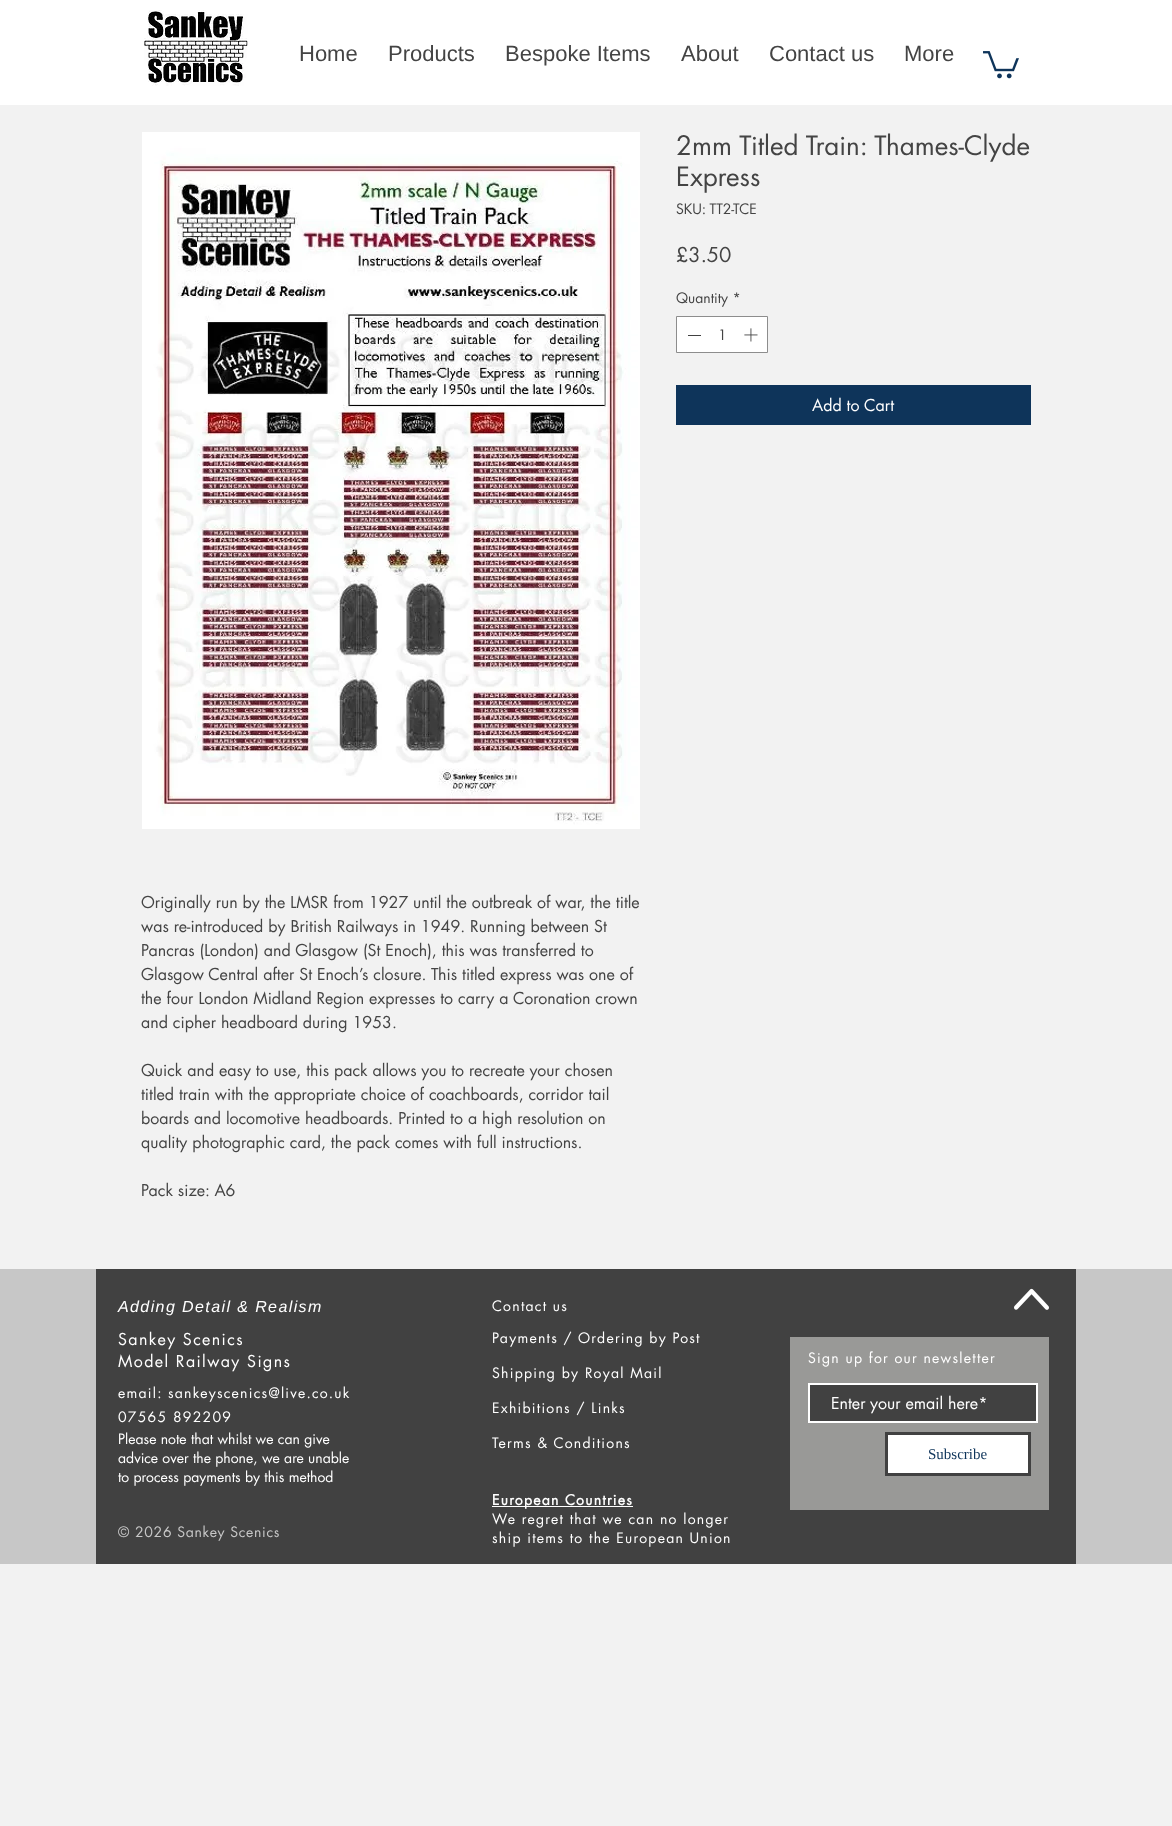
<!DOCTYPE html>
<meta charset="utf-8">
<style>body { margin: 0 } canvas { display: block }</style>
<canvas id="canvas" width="1172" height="1826"></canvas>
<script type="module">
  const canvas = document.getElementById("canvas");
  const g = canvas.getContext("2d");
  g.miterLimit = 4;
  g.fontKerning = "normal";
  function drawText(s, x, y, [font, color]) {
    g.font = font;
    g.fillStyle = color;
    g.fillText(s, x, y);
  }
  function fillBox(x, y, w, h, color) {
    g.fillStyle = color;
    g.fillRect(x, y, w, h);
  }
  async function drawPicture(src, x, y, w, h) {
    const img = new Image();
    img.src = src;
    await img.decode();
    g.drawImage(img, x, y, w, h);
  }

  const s1 = ["22px Liberation Sans", "#444444"];
  const s2 = ["26px futura", "#444444"];
  const s3 = ["14px futura", "#444444"];
  const s4 = ["20px futura", "#444444"];
  const s5 = ["16px futura", "#FFFFFF"];
  const s6 = ["16px futura", "#444444"];
  const s7 = ["italic 16px Liberation Sans", "#FFFFFF"];
  const s8 = ["14px futura", "#FFFFFF"];
  const s9 = ["14px futura", "#C7C7C7"];
  const s10 = ["bold 14px futura", "#FFFFFF"];
  const s11 = ["15px Liberation Serif", "#0E345A"];

  fillBox(0, 0, 1172, 1826, "#F2F2F2");
  fillBox(0, 0, 1172, 105, "#FFFFFF");
  await drawPicture("pic1.png", 144, 10, 104, 76);
  drawText("Home", 299, 61, s1);
  drawText("Products", 388, 61, s1);
  drawText("Bespoke Items", 505, 61, s1);
  drawText("About", 681, 61, s1);
  drawText("Contact us", 769, 61, s1);
  drawText("More", 904, 61, s1);
  await drawPicture("pic2.png", 983, 51, 36, 28);
  drawText("2mm Titled Train: Thames-Clyde", 676, 155, s2);
  drawText("Express", 676, 186, s2);
  drawText("SKU: TT2-TCE", 676, 214, s3);
  drawText("£3.50", 676, 262, s4);
  drawText("Quantity *", 676, 303, s3);
  g.fillStyle = "#FFFFFF";
  g.beginPath();
  g.rect(676.5, 316.5, 91, 36);
  g.fill();
  g.strokeStyle = "#8D8D8D";
  g.stroke();
  fillBox(688, 335, 13, 1, "#414141");
  drawText("1", 718, 340, s3);
  await drawPicture("pic3.png", 744, 328, 14, 14);
  fillBox(676, 385, 355, 40, "#0E345A");
  drawText("Add to Cart", 812, 411, s5);
  await drawPicture("pic4.png", 142, 132, 498, 697);
  drawText("Originally run by the LMSR from 1927 until the outbreak of war, the title", 141, 908, s6);
  drawText("was re-introduced by British Railways in 1949. Running between St", 141, 932, s6);
  drawText("Pancras (London) and Glasgow (St Enoch), this was transferred to", 141, 956, s6);
  drawText("Glasgow Central after St Enoch’s closure. This titled express was one of", 141, 980, s6);
  drawText("the four London Midland Region expresses to carry a Coronation crown", 141, 1004, s6);
  drawText("and cipher headboard during 1953.", 141, 1028, s6);
  drawText("Quick and easy to use, this pack allows you to recreate your chosen", 141, 1076, s6);
  drawText("titled train with the appropriate choice of coachboards, corridor tail", 141, 1100, s6);
  drawText("boards and locomotive headboards. Printed to a high resolution on", 141, 1124, s6);
  drawText("quality photographic card, the pack comes with full instructions.", 141, 1148, s6);
  drawText("Pack size: A6", 141, 1196, s6);
  fillBox(0, 1269, 1172, 295, "#C7C7C7");
  fillBox(96, 1269, 980, 295, "#414141");
  g.letterSpacing = "1.4px";
  drawText("Adding Detail & Realism", 118, 1312, s7);
  g.letterSpacing = "1.25px";
  drawText("Contact us", 492, 1311, s8);
  g.letterSpacing = "1.4px";
  drawText("Sankey Scenics", 118, 1345, s5);
  drawText("Model Railway Signs", 118, 1367, s5);
  g.letterSpacing = "1.25px";
  drawText("Payments / Ordering by Post", 492, 1343, s8);
  drawText("Shipping by Royal Mail", 492, 1378, s8);
  drawText("Exhibitions / Links", 492, 1413, s8);
  drawText("Terms & Conditions", 492, 1448, s8);
  drawText("email: sankeyscenics@live.co.uk", 118, 1398, s8);
  drawText("07565 892209", 118, 1422, s8);
  g.letterSpacing = "0px";
  drawText("Please note that whilst we can give", 118, 1444, s8);
  drawText("advice over the phone, we are unable", 118, 1463, s8);
  drawText("to process payments by this method", 118, 1482, s8);
  g.letterSpacing = "0.7px";
  drawText("© 2026 Sankey Scenics", 118, 1537, s9);
  fillBox(492, 1506, 141, 1, "#FFFFFF");
  g.letterSpacing = "1.25px";
  drawText("European Countries", 492, 1505, s10);
  drawText("We regret that we can no longer", 492, 1524, s8);
  drawText("ship items to the European Union", 492, 1543, s8);
  fillBox(790, 1337, 259, 173, "#999997");
  drawText("Sign up for our newsletter", 808, 1363, s8);
  g.fillStyle = "#414141";
  g.beginPath();
  g.rect(809, 1384, 228, 38);
  g.fill();
  g.strokeStyle = "#FFFFFF";
  g.lineWidth = 2;
  g.stroke();
  g.letterSpacing = "0px";
  drawText("Enter your email here*", 831, 1409, s5);
  g.beginPath();
  g.rect(886.5, 1433.5, 143, 41);
  g.fill();
  g.strokeStyle = "#414141";
  g.lineWidth = 3;
  g.stroke();
  drawText("Subscribe", 928, 1459, s11);
  await drawPicture("pic5.png", 1014, 1288, 35, 22);
</script>
